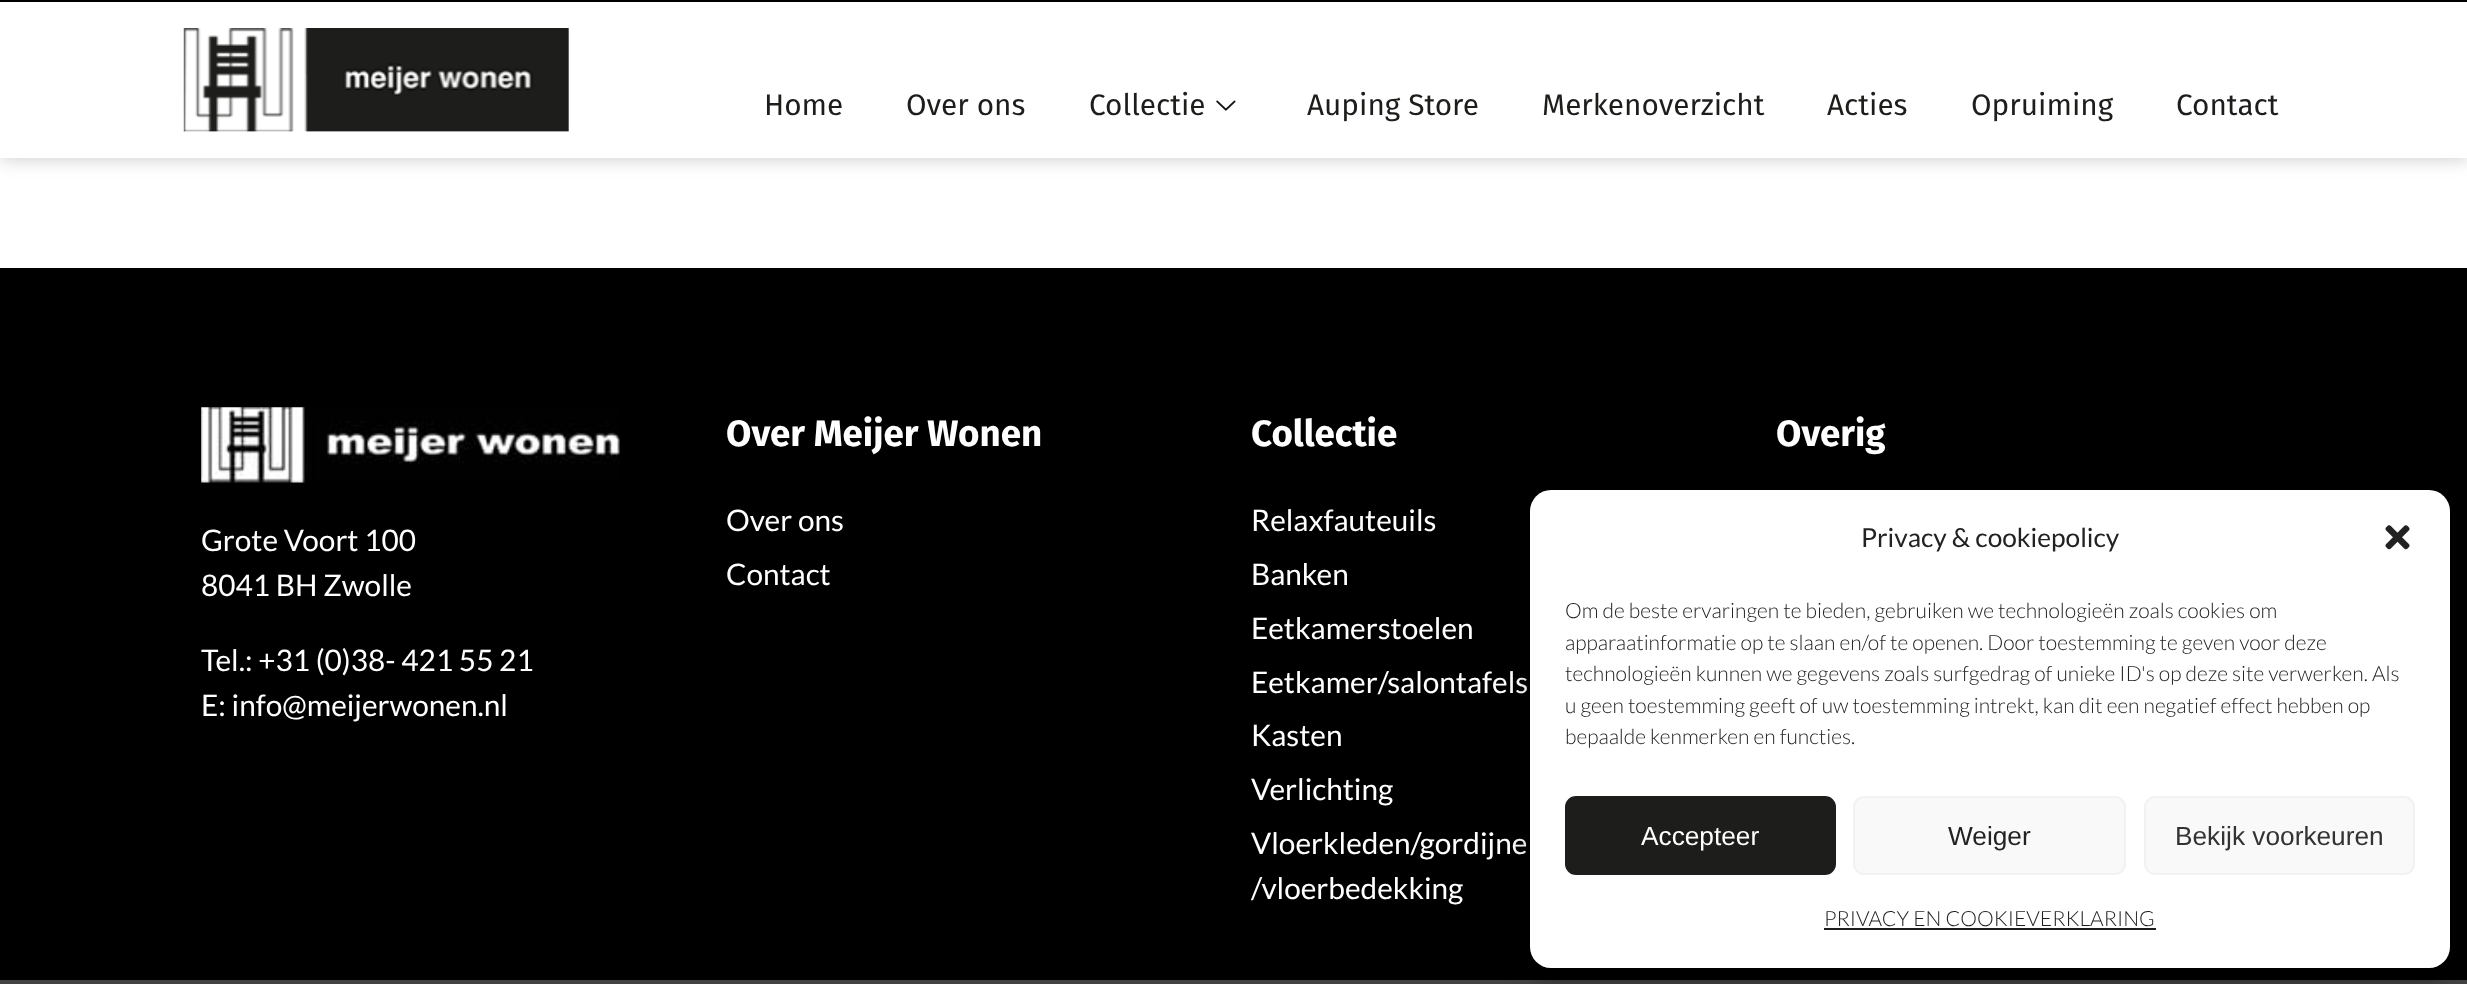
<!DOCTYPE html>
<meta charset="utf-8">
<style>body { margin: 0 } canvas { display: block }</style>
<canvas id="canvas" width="2467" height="984"></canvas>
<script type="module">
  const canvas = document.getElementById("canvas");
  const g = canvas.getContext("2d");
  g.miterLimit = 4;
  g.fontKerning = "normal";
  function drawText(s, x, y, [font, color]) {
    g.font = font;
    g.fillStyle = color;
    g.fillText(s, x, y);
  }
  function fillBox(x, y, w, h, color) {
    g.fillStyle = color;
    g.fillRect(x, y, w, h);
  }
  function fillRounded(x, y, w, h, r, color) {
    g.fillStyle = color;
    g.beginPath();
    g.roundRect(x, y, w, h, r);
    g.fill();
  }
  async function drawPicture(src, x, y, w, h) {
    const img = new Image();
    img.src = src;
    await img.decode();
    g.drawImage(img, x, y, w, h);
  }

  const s1 = ["29.75px Fira Sans", "#1D1D1B"];
  const s2 = ["bold 36.75px Fira Sans", "#FFFFFF"];
  const s3 = ["29.75px Lato", "#FFFFFF"];
  const s4 = ["26.25px Lato", "#222222"];
  const s5 = ["300 21px Lato", "#222222"];
  const s6 = ["26.25px Liberation Sans", "#FFFFFF"];
  const s7 = ["26.25px Liberation Sans", "#222222"];
  const s8 = ["26.25px Liberation Sans", "#333333"];
  const s9 = ["300 21px Lato", "#1D1D1B"];

  fillBox(0, 0, 2467, 984, "#FFFFFF");
  g.fillStyle = "#CCCCCC";
  g.filter = "blur(9px)";
  g.beginPath();
  g.rect(0, 2, 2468, 157);
  g.fill();
  g.filter = "none";
  fillBox(0, 2, 2467, 156, "#FFFFFF");
  fillBox(0, 0, 2467, 2, "#000000");
  await drawPicture("pic1.png", 183, 28, 386, 104);
  drawText("Home", 764, 115, s1);
  drawText("Over ons", 906, 115, s1);
  drawText("Collectie", 1089, 115, s1);
  await drawPicture("pic2.png", 1216, 100, 20, 11);
  drawText("Auping Store", 1307, 115, s1);
  drawText("Merkenoverzicht", 1542, 115, s1);
  drawText("Acties", 1827, 115, s1);
  drawText("Opruiming", 1971, 115, s1);
  drawText("Contact", 2176, 115, s1);
  fillBox(0, 268, 2467, 712, "#000000");
  drawText("Over Meijer Wonen", 726, 446, s2);
  drawText("Over ons", 726, 531, s3);
  drawText("Contact", 726, 585, s3);
  drawText("Collectie", 1251, 446, s2);
  drawText("Relaxfauteuils", 1251, 531, s3);
  drawText("Banken", 1251, 585, s3);
  drawText("Eetkamerstoelen", 1251, 639, s3);
  drawText("Eetkamer/salontafels", 1251, 693, s3);
  drawText("Kasten", 1251, 746, s3);
  drawText("Verlichting", 1251, 800, s3);
  drawText("Vloerkleden/gordijne", 1251, 854, s3);
  drawText("/vloerbedekking", 1251, 899, s3);
  drawText("Overig", 1776, 446, s2);
  await drawPicture("pic3.png", 201, 407, 419, 76);
  drawText("Grote Voort 100", 201, 551, s3);
  drawText("8041 BH Zwolle", 201, 596, s3);
  drawText("Tel.: +31 (0)38- 421 55 21", 201, 671, s3);
  drawText("E: info@meijerwonen.nl", 201, 716, s3);
  fillBox(0, 980, 2467, 4, "#434343");
  g.fillStyle = "rgba(0, 0, 0, 0.23)";
  g.filter = "blur(5px)";
  g.beginPath();
  g.roundRect(1530, 501, 920, 477, 21);
  g.fill();
  g.filter = "none";
  g.fillStyle = "rgba(0, 0, 0, 0.19)";
  g.filter = "blur(17.5px)";
  g.beginPath();
  g.roundRect(1530, 508, 920, 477, 21);
  g.fill();
  g.filter = "none";
  fillRounded(1530, 490, 920, 478, 21, "#FFFFFF");
  drawText("Privacy & cookiepolicy", 1861, 547, s4);
  await drawPicture("pic4.png", 2385, 525, 25, 25);
  drawText("Om de beste ervaringen te bieden, gebruiken we technologieën zoals cookies om", 1565, 618, s5);
  drawText("apparaatinformatie op te slaan en/of te openen. Door toestemming te geven voor deze", 1565, 650, s5);
  drawText("technologieën kunnen we gegevens zoals surfgedrag of unieke ID's op deze site verwerken. Als", 1565, 681, s5);
  drawText("u geen toestemming geeft of uw toestemming intrekt, kan dit een negatief effect hebben op", 1565, 713, s5);
  drawText("bepaalde kenmerken en functies.", 1565, 744, s5);
  g.fillStyle = "#1D1D1B";
  g.beginPath();
  g.roundRect(1566, 797, 269, 77, 10);
  g.fill();
  g.strokeStyle = "#1D1D1B";
  g.lineWidth = 2;
  g.stroke();
  drawText("Accepteer", 1641, 845, s6);
  g.fillStyle = "#F9F9F9";
  g.beginPath();
  g.roundRect(1854, 797, 271, 77, 10);
  g.fill();
  g.strokeStyle = "#F2F2F2";
  g.stroke();
  drawText("Weiger", 1948, 845, s7);
  g.fillStyle = "#F9F9F9";
  g.beginPath();
  g.roundRect(2145, 797, 269, 77, 10);
  g.fill();
  g.stroke();
  drawText("Bekijk voorkeuren", 2175, 845, s8);
  drawText("PRIVACY EN COOKIEVERKLARING", 1824, 926, s9);
  fillBox(1824, 928, 332, 2, "#1D1D1B");
</script>
